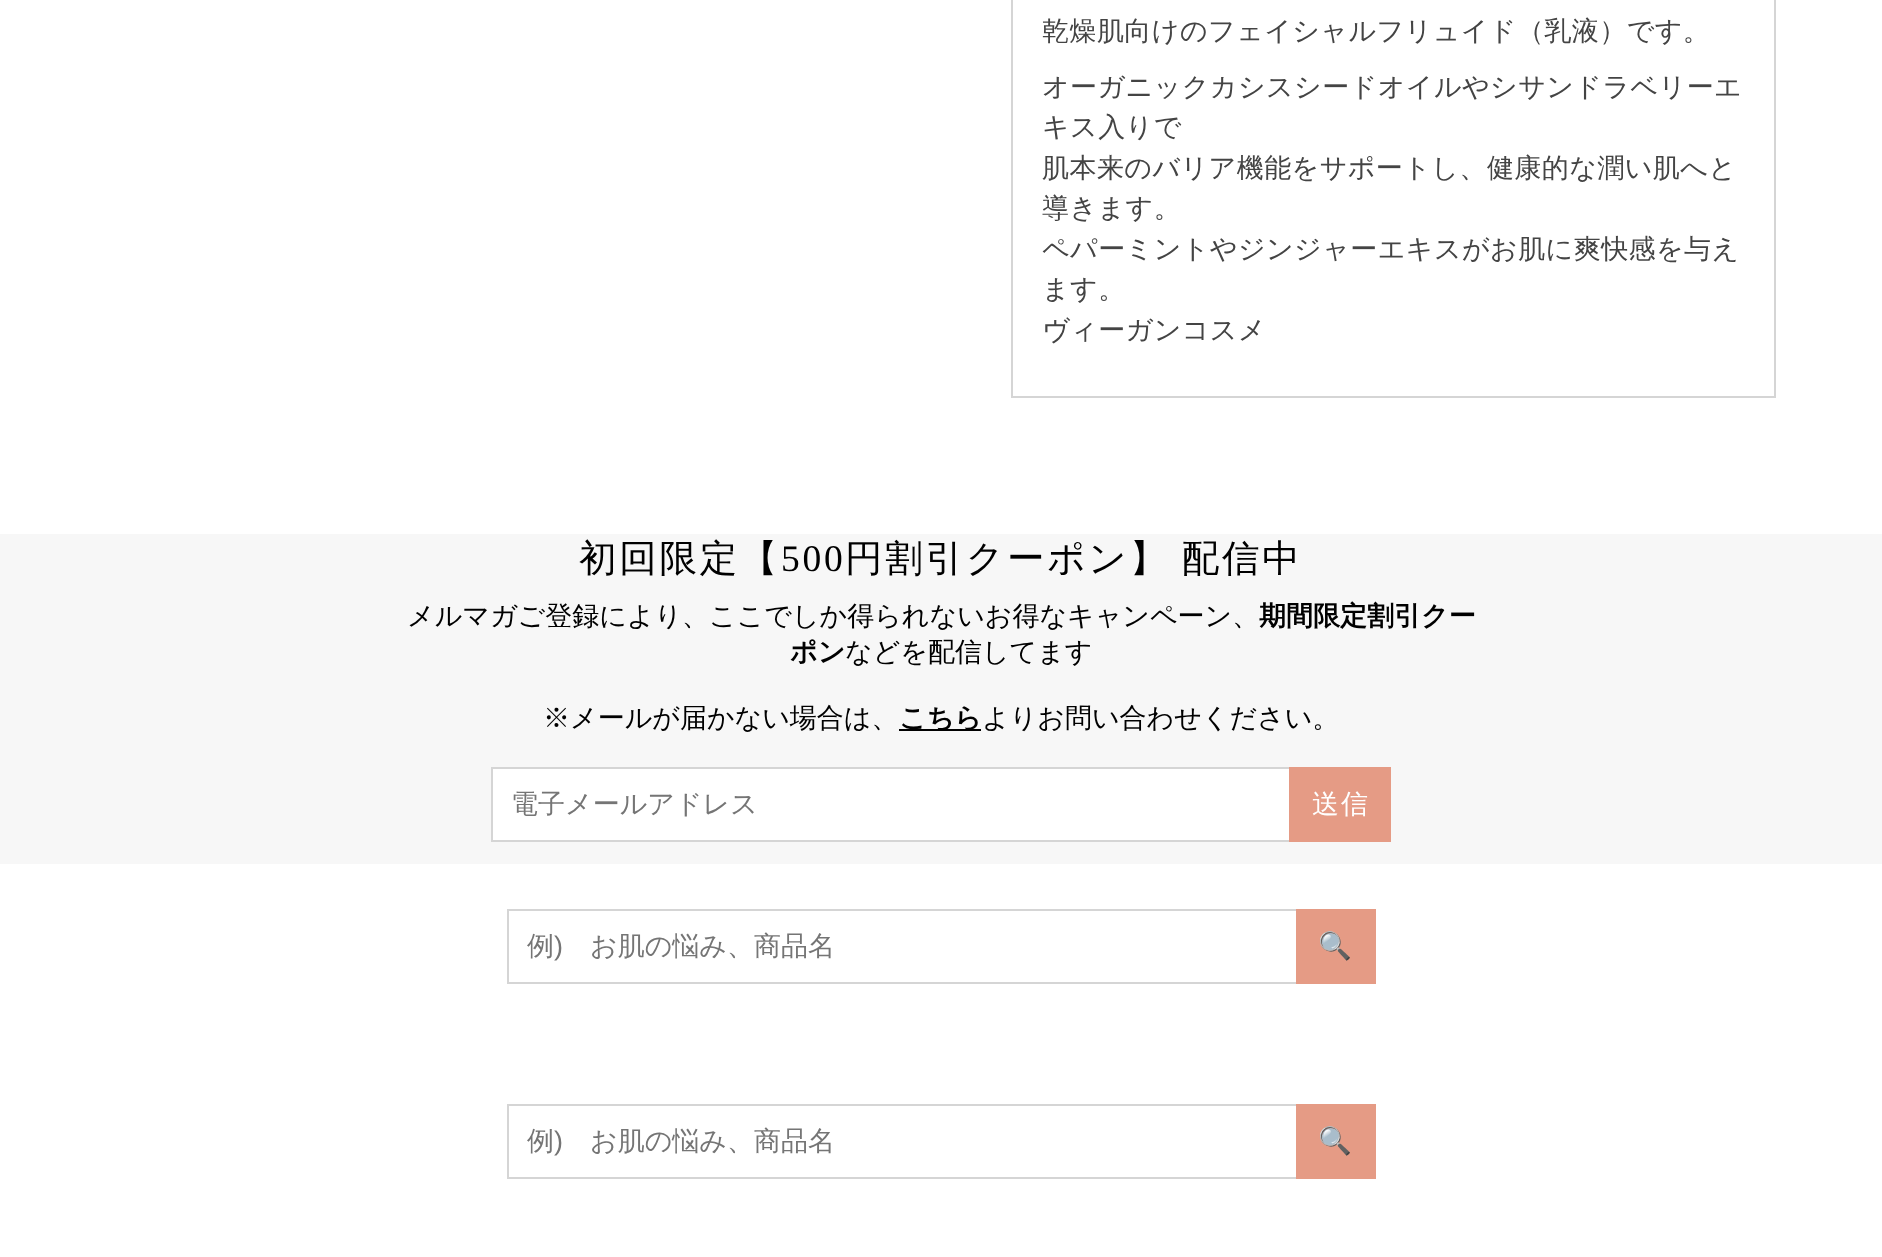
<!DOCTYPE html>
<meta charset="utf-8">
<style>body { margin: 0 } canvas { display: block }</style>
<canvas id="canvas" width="1882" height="1257"></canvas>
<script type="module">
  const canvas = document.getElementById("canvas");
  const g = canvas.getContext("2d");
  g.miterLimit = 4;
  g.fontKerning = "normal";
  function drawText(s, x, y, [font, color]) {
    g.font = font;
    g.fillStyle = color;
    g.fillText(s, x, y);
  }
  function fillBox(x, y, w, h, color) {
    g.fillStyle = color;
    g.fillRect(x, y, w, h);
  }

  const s1 = ["500 27px WenQuanYi Zen Hei", "#444444"];
  const s2 = ["500 37.5px WenQuanYi Zen Hei", "#000000"];
  const s3 = ["37.5px Liberation Serif", "#000000"];
  const s4 = ["500 27px WenQuanYi Zen Hei", "#000000"];
  const s5 = ["bold 27px WenQuanYi Zen Hei", "#000000"];
  const s6 = ["500 27px WenQuanYi Zen Hei", "#757575"];
  const s7 = ["500 27px WenQuanYi Zen Hei", "#FFFFFF"];
  const s8 = ["27px Liberation Sans", "#757575"];
  const s9 = ["27px Noto Color Emoji", "#FFFFFF"];

  fillBox(0, 0, 1882, 1257, "#FFFFFF");
  g.strokeStyle = "#D5D5D5";
  g.lineWidth = 2;
  g.strokeRect(1012, -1, 763, 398);
  g.letterSpacing = "0.45px";
  drawText("乾燥肌向けのフェイシャルフリュイド（乳液）です。", 1042, 40, s1);
  drawText("オーガニックカシスシードオイルやシサンドラベリーエ", 1042, 96, s1);
  drawText("キス入りで", 1042, 136, s1);
  drawText("肌本来のバリア機能をサポートし、健康的な潤い肌へと", 1042, 177, s1);
  drawText("導きます。", 1042, 217, s1);
  drawText("ペパーミントやジンジャーエキスがお肌に爽快感を与え", 1042, 258, s1);
  drawText("ます。", 1042, 298, s1);
  drawText("ヴィーガンコスメ", 1042, 339, s1);
  fillBox(0, 534, 1882, 330, "#F7F7F7");
  g.letterSpacing = "2.75px";
  drawText("初回限定【", 579, 571, s2);
  drawText("500", 781, 571, s3);
  g.wordSpacing = "-2px";
  drawText("円割引クーポン】 配信中", 845, 571, s2);
  g.letterSpacing = "0px";
  g.wordSpacing = "0px";
  drawText("メルマガご登録により、ここでしか得られないお得なキャンペーン、", 407, 625, s4);
  drawText("期間限定割引クー", 1259, 625, s5);
  drawText("ポン", 790, 661, s5);
  drawText("などを配信してます", 845, 661, s4);
  drawText("※メールが届かない場合は、", 543, 727, s4);
  fillBox(899, 729, 82, 2, "#000000");
  drawText("こちら", 899, 727, s5);
  drawText("よりお問い合わせください。", 982, 727, s4);
  fillBox(493, 769, 796, 71, "#FFFFFF");
  g.strokeRect(492, 768, 898, 73);
  drawText("電子メールアドレス", 511, 813, s6);
  fillBox(1289, 767, 102, 75, "#E59B85");
  g.letterSpacing = "2px";
  drawText("送信", 1312, 813, s7);
  g.strokeRect(508, 910, 867, 73);
  g.letterSpacing = "0px";
  drawText("例", 527, 955, s6);
  drawText(")", 554, 955, s8);
  drawText("お肌の悩み、商品名", 590, 955, s6);
  fillBox(1296, 909, 80, 75, "#E59B85");
  g.letterSpacing = "2px";
  drawText("🔍", 1318, 955, s9);
  g.strokeRect(508, 1105, 867, 73);
  g.letterSpacing = "0px";
  drawText("例", 527, 1150, s6);
  drawText(")", 554, 1150, s8);
  drawText("お肌の悩み、商品名", 590, 1150, s6);
  fillBox(1296, 1104, 80, 75, "#E59B85");
  g.letterSpacing = "2px";
  drawText("🔍", 1318, 1150, s9);
</script>
